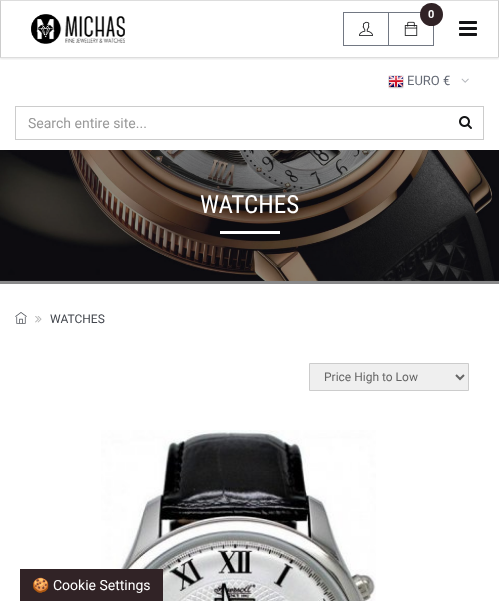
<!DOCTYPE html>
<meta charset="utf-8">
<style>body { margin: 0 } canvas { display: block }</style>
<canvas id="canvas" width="499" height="601"></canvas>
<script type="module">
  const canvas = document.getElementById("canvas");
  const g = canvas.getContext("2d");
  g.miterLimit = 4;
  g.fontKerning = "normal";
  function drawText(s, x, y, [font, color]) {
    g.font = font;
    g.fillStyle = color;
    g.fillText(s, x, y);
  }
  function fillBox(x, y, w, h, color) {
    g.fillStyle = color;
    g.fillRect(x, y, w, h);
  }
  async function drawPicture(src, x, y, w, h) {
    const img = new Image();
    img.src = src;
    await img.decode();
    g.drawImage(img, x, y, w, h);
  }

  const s1 = ["bold 11px Roboto", "#FFFFFF"];
  const s2 = ["13px Roboto", "#666B76"];
  const s3 = ["14px Roboto", "#999999"];
  const s4 = ["25px Roboto Condensed", "#FFFFFF"];
  const s5 = ["12px Roboto", "#42464D"];
  const s6 = ["12px Roboto", "#666666"];
  const s7 = ["14px Noto Color Emoji", "#FFFFFF"];
  const s8 = ["14px Roboto", "#FFFFFF"];

  fillBox(0, 0, 499, 601, "#FFFFFF");
  g.save();
  g.beginPath();
  g.rect(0, 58, 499, 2);
  g.clip();
  g.fillStyle = "rgba(0, 0, 0, 0.1)";
  g.filter = "blur(1px)";
  g.beginPath();
  g.rect(0, 1, 499, 58);
  g.fill();
  g.filter = "none";
  g.restore();
  g.fillStyle = "#DDDDDD";
  g.beginPath();
  g.moveTo(0, 0);
  g.lineTo(499, 0);
  g.lineTo(498, 1);
  g.lineTo(1, 1);
  g.closePath();
  g.fill();
  g.fillStyle = "rgba(0, 0, 0, 0.2)";
  g.beginPath();
  g.moveTo(499, 0);
  g.lineTo(499, 58);
  g.lineTo(498, 57);
  g.lineTo(498, 1);
  g.closePath();
  g.fill();
  g.fillStyle = "#DDDDDD";
  g.beginPath();
  g.moveTo(499, 58);
  g.lineTo(0, 58);
  g.lineTo(1, 57);
  g.lineTo(498, 57);
  g.closePath();
  g.fill();
  g.fillStyle = "rgba(0, 0, 0, 0.2)";
  g.beginPath();
  g.moveTo(0, 58);
  g.lineTo(0, 0);
  g.lineTo(1, 1);
  g.lineTo(1, 57);
  g.closePath();
  g.fill();
  g.strokeStyle = "#727883";
  g.strokeRect(343.5, 12.5, 45, 33);
  await drawPicture("pic1.png", 359, 21, 14, 15);
  g.strokeRect(388.5, 12.5, 45, 33);
  g.fillStyle = "#312326";
  g.beginPath();
  g.arc(431.5, 14.5, 11.5, 0, Math.PI * 2);
  g.fill();
  drawText("0", 428, 18, s1);
  await drawPicture("pic2.png", 404, 21, 14, 15);
  await drawPicture("pic3.png", 31, 14, 94, 30);
  await drawPicture("pic4.png", 459, 21, 18, 15);
  await drawPicture("pic5.png", 388, 75, 16, 14);
  drawText("EURO €", 407, 85, s2);
  await drawPicture("pic6.png", 461, 78, 8, 5);
  g.strokeStyle = "#CCCCCC";
  g.strokeRect(15.5, 106.5, 468, 33);
  drawText("Search entire site...", 28, 128, s3);
  await drawPicture("pic7.png", 459, 116, 13, 13);
  await drawPicture("pic8.png", 0, 150, 499, 131);
  fillBox(0, 150, 499, 134, "rgba(19, 20, 22, 0.5)");
  drawText("WATCHES", 200, 213, s4);
  fillBox(220, 231, 60, 3, "#FFFFFF");
  await drawPicture("pic9.png", 15, 312, 12, 12);
  await drawPicture("pic10.png", 35, 316, 7, 7);
  drawText("WATCHES", 50, 323, s5);
  g.fillStyle = "#EFEFEF";
  g.beginPath();
  g.rect(309.5, 363.5, 159, 27);
  g.fill();
  g.stroke();
  g.beginPath();
  g.moveTo(456, 375);
  g.lineTo(460, 379);
  g.lineTo(464, 375);
  g.strokeStyle = "#666666";
  g.lineWidth = 2;
  g.stroke();
  drawText("Price High to Low", 324, 381, s6);
  await drawPicture("pic11.png", 101, 430, 275, 171);
  fillBox(20, 569, 143, 32, "#312326");
  drawText("🍪", 32, 590, s7);
  drawText("Cookie Settings", 53, 590, s8);
</script>
